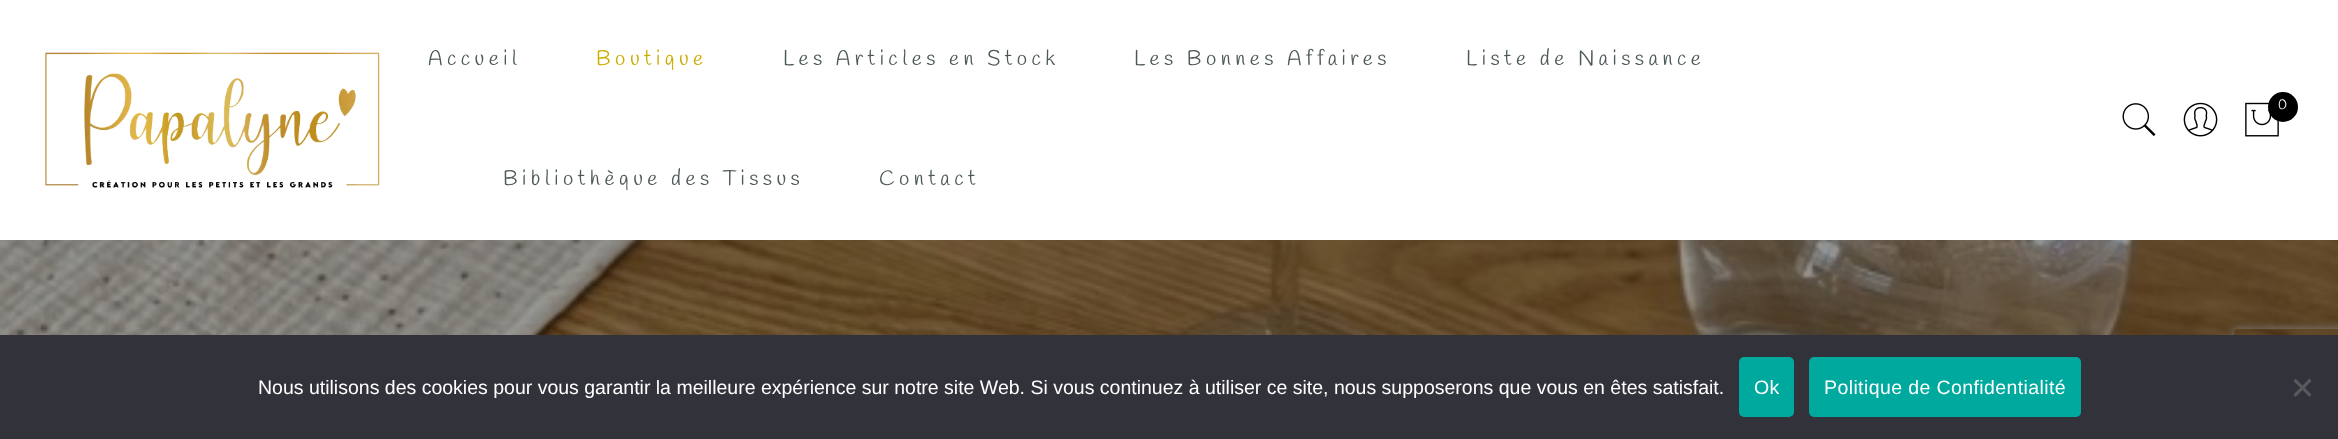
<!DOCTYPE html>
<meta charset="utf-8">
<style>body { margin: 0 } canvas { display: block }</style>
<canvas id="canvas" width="2338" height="439"></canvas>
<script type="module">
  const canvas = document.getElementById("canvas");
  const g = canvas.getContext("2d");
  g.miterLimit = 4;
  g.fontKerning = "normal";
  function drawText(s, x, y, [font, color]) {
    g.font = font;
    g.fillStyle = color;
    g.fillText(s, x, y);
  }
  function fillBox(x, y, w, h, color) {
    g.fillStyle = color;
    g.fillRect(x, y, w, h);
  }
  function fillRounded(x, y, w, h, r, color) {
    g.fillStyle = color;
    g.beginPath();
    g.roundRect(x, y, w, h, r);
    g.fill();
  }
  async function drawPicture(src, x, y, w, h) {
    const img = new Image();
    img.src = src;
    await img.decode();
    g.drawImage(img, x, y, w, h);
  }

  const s1 = ["21px Handlee", "#4D5959"];
  const s2 = ["21px Handlee", "#CCAC00"];
  const s3 = ["14px Handlee", "#FFFFFF"];
  const s4 = ["19.5px Liberation Sans", "#FFFFFF"];

  fillBox(0, 0, 2338, 439, "#FFFFFF");
  await drawPicture("pic1.png", 45, 52, 335, 136);
  g.letterSpacing = "4.5px";
  drawText("Accueil", 428, 65, s1);
  drawText("Boutique", 596, 65, s2);
  drawText("Les Articles en Stock", 783, 65, s1);
  drawText("Les Bonnes Affaires", 1134, 65, s1);
  drawText("Liste de Naissance", 1466, 65, s1);
  drawText("Bibliothèque des Tissus", 503, 185, s1);
  drawText("Contact", 879, 185, s1);
  await drawPicture("pic2.png", 2122, 103, 34, 33);
  await drawPicture("pic3.png", 2183, 102, 35, 35);
  await drawPicture("pic4.png", 2245, 102, 34, 35);
  g.fillStyle = "#000000";
  g.beginPath();
  g.arc(2283, 107, 15, 0, Math.PI * 2);
  g.fill();
  g.letterSpacing = "2px";
  drawText("0", 2278, 109, s3);
  await drawPicture("pic5.png", 0, 240, 2338, 95);
  g.save();
  g.beginPath();
  g.moveTo(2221, 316);
  g.lineTo(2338, 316);
  g.lineTo(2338, 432);
  g.lineTo(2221, 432);
  g.closePath();
  g.moveTo(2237, 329);
  g.lineTo(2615, 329);
  g.bezierCurveTo(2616.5, 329, 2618, 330.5, 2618, 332);
  g.lineTo(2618, 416);
  g.bezierCurveTo(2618, 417.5, 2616.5, 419, 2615, 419);
  g.lineTo(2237, 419);
  g.bezierCurveTo(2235.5, 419, 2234, 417.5, 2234, 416);
  g.lineTo(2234, 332);
  g.bezierCurveTo(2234, 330.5, 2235.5, 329, 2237, 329);
  g.closePath();
  g.clip("evenodd");
  g.fillStyle = "#808080";
  g.filter = "blur(4px)";
  g.beginPath();
  g.roundRect(2234, 329, 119, 90, 3);
  g.fill();
  g.filter = "none";
  g.restore();
  fillBox(0, 335, 2338, 104, "#32323A");
  g.letterSpacing = "0px";
  drawText("Nous utilisons des cookies pour vous garantir la meilleure expérience sur notre site Web. Si vous continuez à utiliser ce site, nous supposerons que vous en êtes satisfait.", 258, 394, s4);
  fillRounded(1739, 357, 55, 60, 5, "#00A99D");
  g.letterSpacing = "0.4px";
  drawText("Ok", 1754, 394, s4);
  fillRounded(1809, 357, 272, 60, 5, "#00A99D");
  drawText("Politique de Confidentialité", 1824, 394, s4);
  g.fillStyle = "#59595D";
  g.beginPath();
  g.moveTo(2309.5, 378.5);
  g.lineTo(2311.5, 381);
  g.lineTo(2295.5, 397);
  g.lineTo(2293.5, 394.5);
  g.closePath();
  g.fill();
  g.beginPath();
  g.moveTo(2293.5, 381);
  g.lineTo(2295.5, 378.5);
  g.lineTo(2311.5, 394.5);
  g.lineTo(2309.5, 397);
  g.closePath();
  g.fill();
</script>
